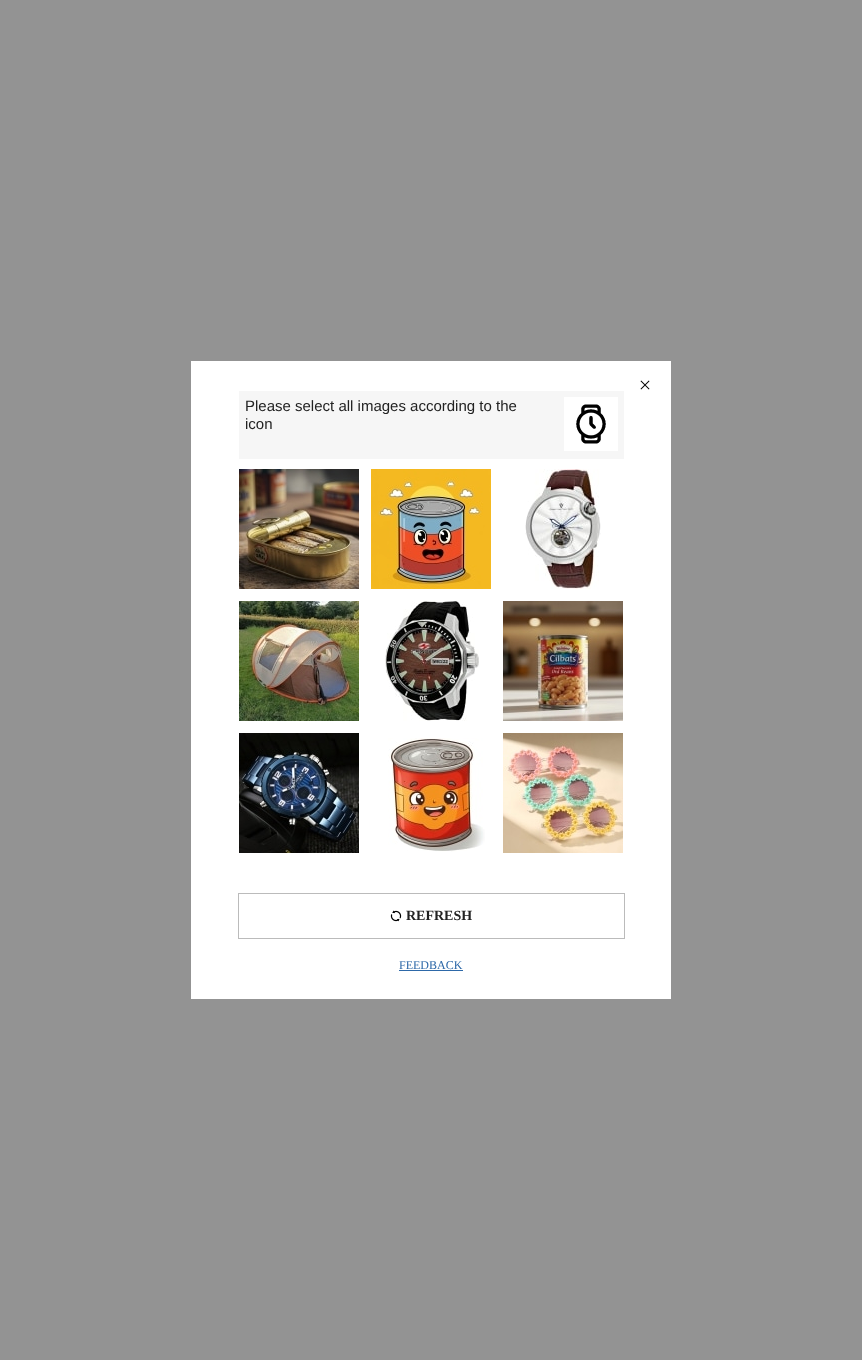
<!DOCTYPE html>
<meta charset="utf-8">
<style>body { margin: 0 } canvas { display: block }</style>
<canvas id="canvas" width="862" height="1360"></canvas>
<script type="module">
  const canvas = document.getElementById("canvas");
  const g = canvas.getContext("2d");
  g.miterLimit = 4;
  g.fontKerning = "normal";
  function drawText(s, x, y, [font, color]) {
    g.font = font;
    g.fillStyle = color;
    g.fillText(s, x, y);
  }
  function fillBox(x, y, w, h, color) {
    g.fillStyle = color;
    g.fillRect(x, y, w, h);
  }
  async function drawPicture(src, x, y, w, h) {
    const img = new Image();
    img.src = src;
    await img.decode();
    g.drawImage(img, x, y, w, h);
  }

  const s1 = ["15px Liberation Sans", "#222222"];
  const s2 = ["bold 14px Liberation Serif", "#222222"];
  const s3 = ["12px Liberation Serif", "#2D68A8"];

  fillBox(0, 0, 862, 1360, "#939393");
  g.fillStyle = "rgba(0, 0, 0, 0.3)";
  g.filter = "blur(0.5px)";
  g.beginPath();
  g.rect(191, 361, 480, 638);
  g.fill();
  g.filter = "none";
  fillBox(191, 361, 480, 638, "#FFFFFF");
  await drawPicture("pic1.png", 640, 380, 10, 10);
  fillBox(239, 391, 385, 68, "#F6F6F6");
  drawText("Please select all images according to the", 245, 411, s1);
  drawText("icon", 245, 429, s1);
  fillBox(564, 397, 54, 54, "#FFFFFF");
  await drawPicture("pic2.png", 576, 404, 30, 40);
  await drawPicture("pic3.png", 239, 469, 120, 120);
  await drawPicture("pic4.png", 371, 469, 120, 120);
  await drawPicture("pic5.png", 525, 469, 76, 120);
  await drawPicture("pic6.png", 239, 601, 120, 120);
  await drawPicture("pic7.png", 385, 601, 94, 120);
  await drawPicture("pic8.png", 503, 601, 120, 120);
  await drawPicture("pic9.png", 239, 733, 120, 120);
  await drawPicture("pic10.png", 388, 738, 97, 114);
  await drawPicture("pic11.png", 503, 733, 120, 120);
  g.strokeStyle = "#BBBBBB";
  g.strokeRect(238.5, 893.5, 386, 45);
  await drawPicture("pic12.png", 390, 910, 12, 12);
  drawText("REFRESH", 406, 920, s2);
  drawText("FEEDBACK", 399, 969, s3);
  fillBox(399, 970, 64, 1, "#2D68A8");
</script>
